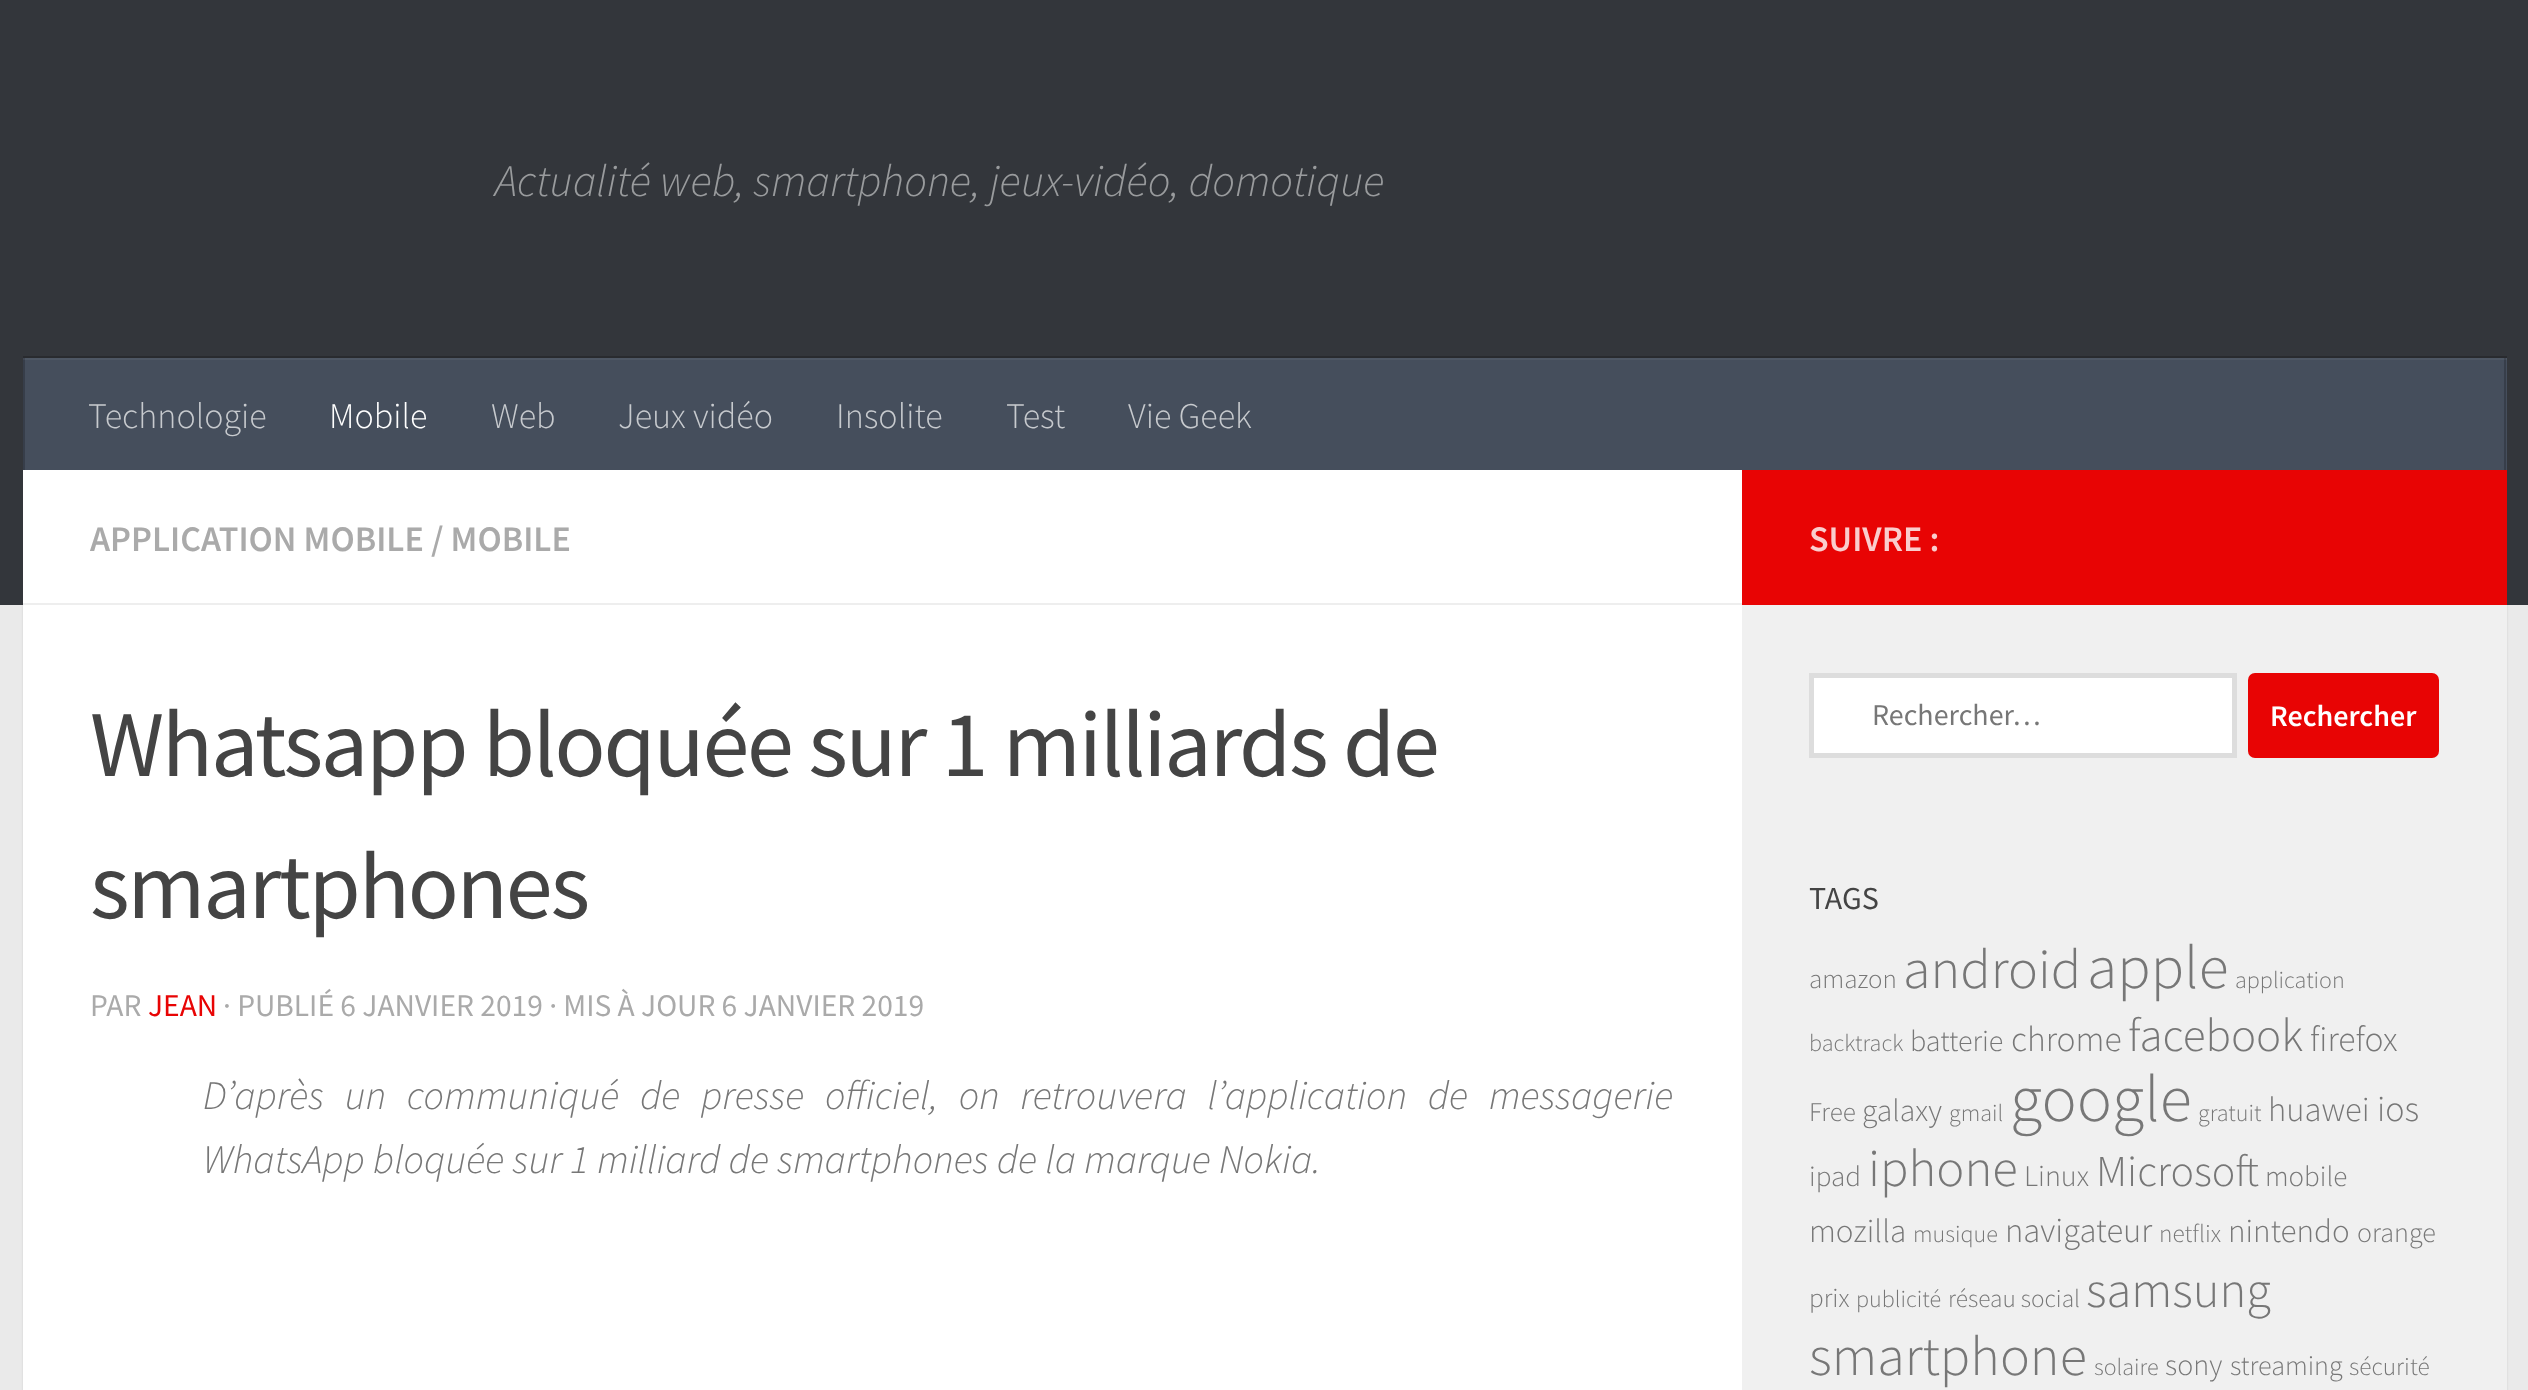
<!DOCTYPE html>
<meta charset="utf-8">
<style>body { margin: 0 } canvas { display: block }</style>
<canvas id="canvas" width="2528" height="1390"></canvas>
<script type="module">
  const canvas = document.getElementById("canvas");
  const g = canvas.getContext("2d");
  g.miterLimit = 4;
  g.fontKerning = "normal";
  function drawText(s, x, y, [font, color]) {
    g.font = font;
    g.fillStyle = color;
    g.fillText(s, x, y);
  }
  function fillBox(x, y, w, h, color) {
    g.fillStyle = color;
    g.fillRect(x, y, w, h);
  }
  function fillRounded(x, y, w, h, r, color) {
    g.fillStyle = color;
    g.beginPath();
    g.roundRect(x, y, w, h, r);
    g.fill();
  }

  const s1 = ["italic 300 45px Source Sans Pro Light", "#999B9D"];
  const s2 = ["300 36px Source Sans Pro Light", "#C7CACE"];
  const s3 = ["300 36px Source Sans Pro Light", "#FFFFFF"];
  const s4 = ["600 36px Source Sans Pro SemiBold", "#AAAAAA"];
  const s5 = ["94.3px Source Sans Pro", "#444444"];
  const s6 = ["31.5px Source Sans Pro", "#AAAAAA"];
  const s7 = ["31.5px Source Sans Pro", "#E80404"];
  const s8 = ["italic 300 40.5px Source Sans Pro Light", "#777777"];
  const s9 = ["600 36px Source Sans Pro SemiBold", "#FACDCD"];
  const s10 = ["30px Source Sans Pro", "#777777"];
  const s11 = ["600 30px Source Sans Pro SemiBold", "#FFFFFF"];
  const s12 = ["32px Source Sans Pro", "#444444"];
  const s13 = ["300 27px Source Sans Pro Light", "#777777"];
  const s14 = ["300 56px Source Sans Pro Light", "#777777"];
  const s15 = ["300 61.5px Source Sans Pro Light", "#777777"];
  const s16 = ["300 24px Source Sans Pro Light", "#777777"];
  const s17 = ["300 30px Source Sans Pro Light", "#777777"];
  const s18 = ["300 35.5px Source Sans Pro Light", "#777777"];
  const s19 = ["300 47px Source Sans Pro Light", "#777777"];
  const s20 = ["300 31.5px Source Sans Pro Light", "#777777"];
  const s21 = ["300 66px Source Sans Pro Light", "#777777"];
  const s22 = ["300 34.5px Source Sans Pro Light", "#777777"];
  const s23 = ["300 36px Source Sans Pro Light", "#777777"];
  const s24 = ["300 29px Source Sans Pro Light", "#777777"];
  const s25 = ["300 52.5px Source Sans Pro Light", "#777777"];
  const s26 = ["300 44px Source Sans Pro Light", "#777777"];
  const s27 = ["300 33px Source Sans Pro Light", "#777777"];
  const s28 = ["300 25.25px Source Sans Pro Light", "#777777"];
  const s29 = ["300 28px Source Sans Pro Light", "#777777"];
  const s30 = ["300 50.5px Source Sans Pro Light", "#777777"];

  fillBox(0, 0, 2528, 1390, "#EAEAEA");
  g.fillStyle = "rgba(0, 0, 0, 0.1)";
  g.filter = "blur(1px)";
  g.beginPath();
  g.rect(23, 473, 2484, 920);
  g.fill();
  g.filter = "none";
  fillBox(0, 0, 2528, 605, "#33363B");
  drawText("Actualité web, smartphone, jeux-vidéo, domotique", 495, 196, s1);
  g.fillStyle = "#292B2F";
  g.beginPath();
  g.moveTo(23, 356);
  g.lineTo(23, 358);
  g.lineTo(2506, 358);
  g.lineTo(2506, 468);
  g.lineTo(2507, 468);
  g.lineTo(2507, 356);
  g.closePath();
  g.fill();
  fillBox(25, 358, 2482, 112, "#454E5C");
  fillBox(2504, 358, 2, 112, "#373E4A");
  fillBox(23, 358, 2, 112, "#373E4A");
  fillBox(23, 358, 2484, 2, "rgba(255, 255, 255, 0.05)");
  drawText("Technologie", 88, 428, s2);
  drawText("Mobile", 329, 428, s3);
  drawText("Web", 491, 428, s2);
  drawText("Jeux vidéo", 618, 428, s2);
  drawText("Insolite", 836, 428, s2);
  drawText("Test", 1006, 428, s2);
  drawText("Vie Geek", 1128, 428, s2);
  fillBox(23, 470, 1719, 920, "#FFFFFF");
  fillBox(23, 603, 1719, 2, "#EEEEEE");
  drawText("APPLICATION MOBILE / MOBILE", 90, 551, s4);
  g.letterSpacing = "-2.25px";
  drawText("Whatsapp bloquée sur 1 milliards de", 90, 776, s5);
  drawText("smartphones", 90, 918, s5);
  g.letterSpacing = "0px";
  drawText("PAR", 90, 1016, s6);
  drawText("JEAN", 148, 1016, s7);
  drawText("· PUBLIÉ 6 JANVIER 2019 · MIS À JOUR 6 JANVIER 2019", 223, 1016, s6);
  g.wordSpacing = "12.5px";
  drawText("D’après un communiqué de presse officiel, on retrouvera l’application de messagerie", 203, 1109, s8);
  g.wordSpacing = "0px";
  drawText("WhatsApp bloquée sur 1 milliard de smartphones de la marque Nokia.", 203, 1173, s8);
  fillBox(1742, 470, 765, 135, "#E80404");
  drawText("SUIVRE :", 1809, 551, s9);
  fillBox(1742, 605, 765, 785, "#F0F0F0");
  g.fillStyle = "#FFFFFF";
  g.beginPath();
  g.rect(1811.5, 675.5, 423, 80);
  g.fill();
  g.strokeStyle = "#DDDDDD";
  g.lineWidth = 5;
  g.stroke();
  drawText("Rechercher…", 1872, 725, s10);
  fillRounded(2248, 673, 191, 85, 7, "#E80404");
  drawText("Rechercher", 2270, 726, s11);
  drawText("TAGS", 1809, 909, s12);
  drawText("amazon", 1809, 988, s13);
  drawText("android", 1903, 988, s14);
  drawText("apple", 2087, 988, s15);
  drawText("application", 2235, 988, s16);
  drawText("backtrack", 1809, 1051, s16);
  drawText("batterie", 1910, 1051, s17);
  drawText("chrome", 2011, 1051, s18);
  drawText("facebook", 2128, 1051, s19);
  drawText("firefox", 2310, 1051, s18);
  drawText("Free", 1809, 1121, s13);
  drawText("galaxy", 1862, 1121, s20);
  drawText("gmail", 1949, 1121, s16);
  drawText("google", 2010, 1121, s21);
  drawText("gratuit", 2198, 1121, s16);
  drawText("huawei", 2268, 1121, s22);
  drawText("ios", 2377, 1121, s23);
  drawText("ipad", 1809, 1186, s24);
  drawText("iphone", 1868, 1186, s25);
  drawText("Linux", 2024, 1186, s17);
  drawText("Microsoft", 2096, 1186, s26);
  drawText("mobile", 2265, 1186, s24);
  drawText("mozilla", 1809, 1242, s27);
  drawText("musique", 1913, 1242, s16);
  drawText("navigateur", 2005, 1242, s22);
  drawText("netflix", 2159, 1242, s28);
  drawText("nintendo", 2228, 1242, s27);
  drawText("orange", 2357, 1242, s29);
  drawText("prix", 1809, 1307, s13);
  drawText("publicité", 1856, 1307, s16);
  drawText("réseau social", 1948, 1307, s28);
  drawText("samsung", 2086, 1307, s30);
  drawText("smartphone", 1809, 1375, s14);
  drawText("solaire", 2094, 1375, s16);
  drawText("sony", 2165, 1375, s17);
  drawText("streaming", 2230, 1375, s29);
  drawText("sécurité", 2349, 1375, s28);
</script>
